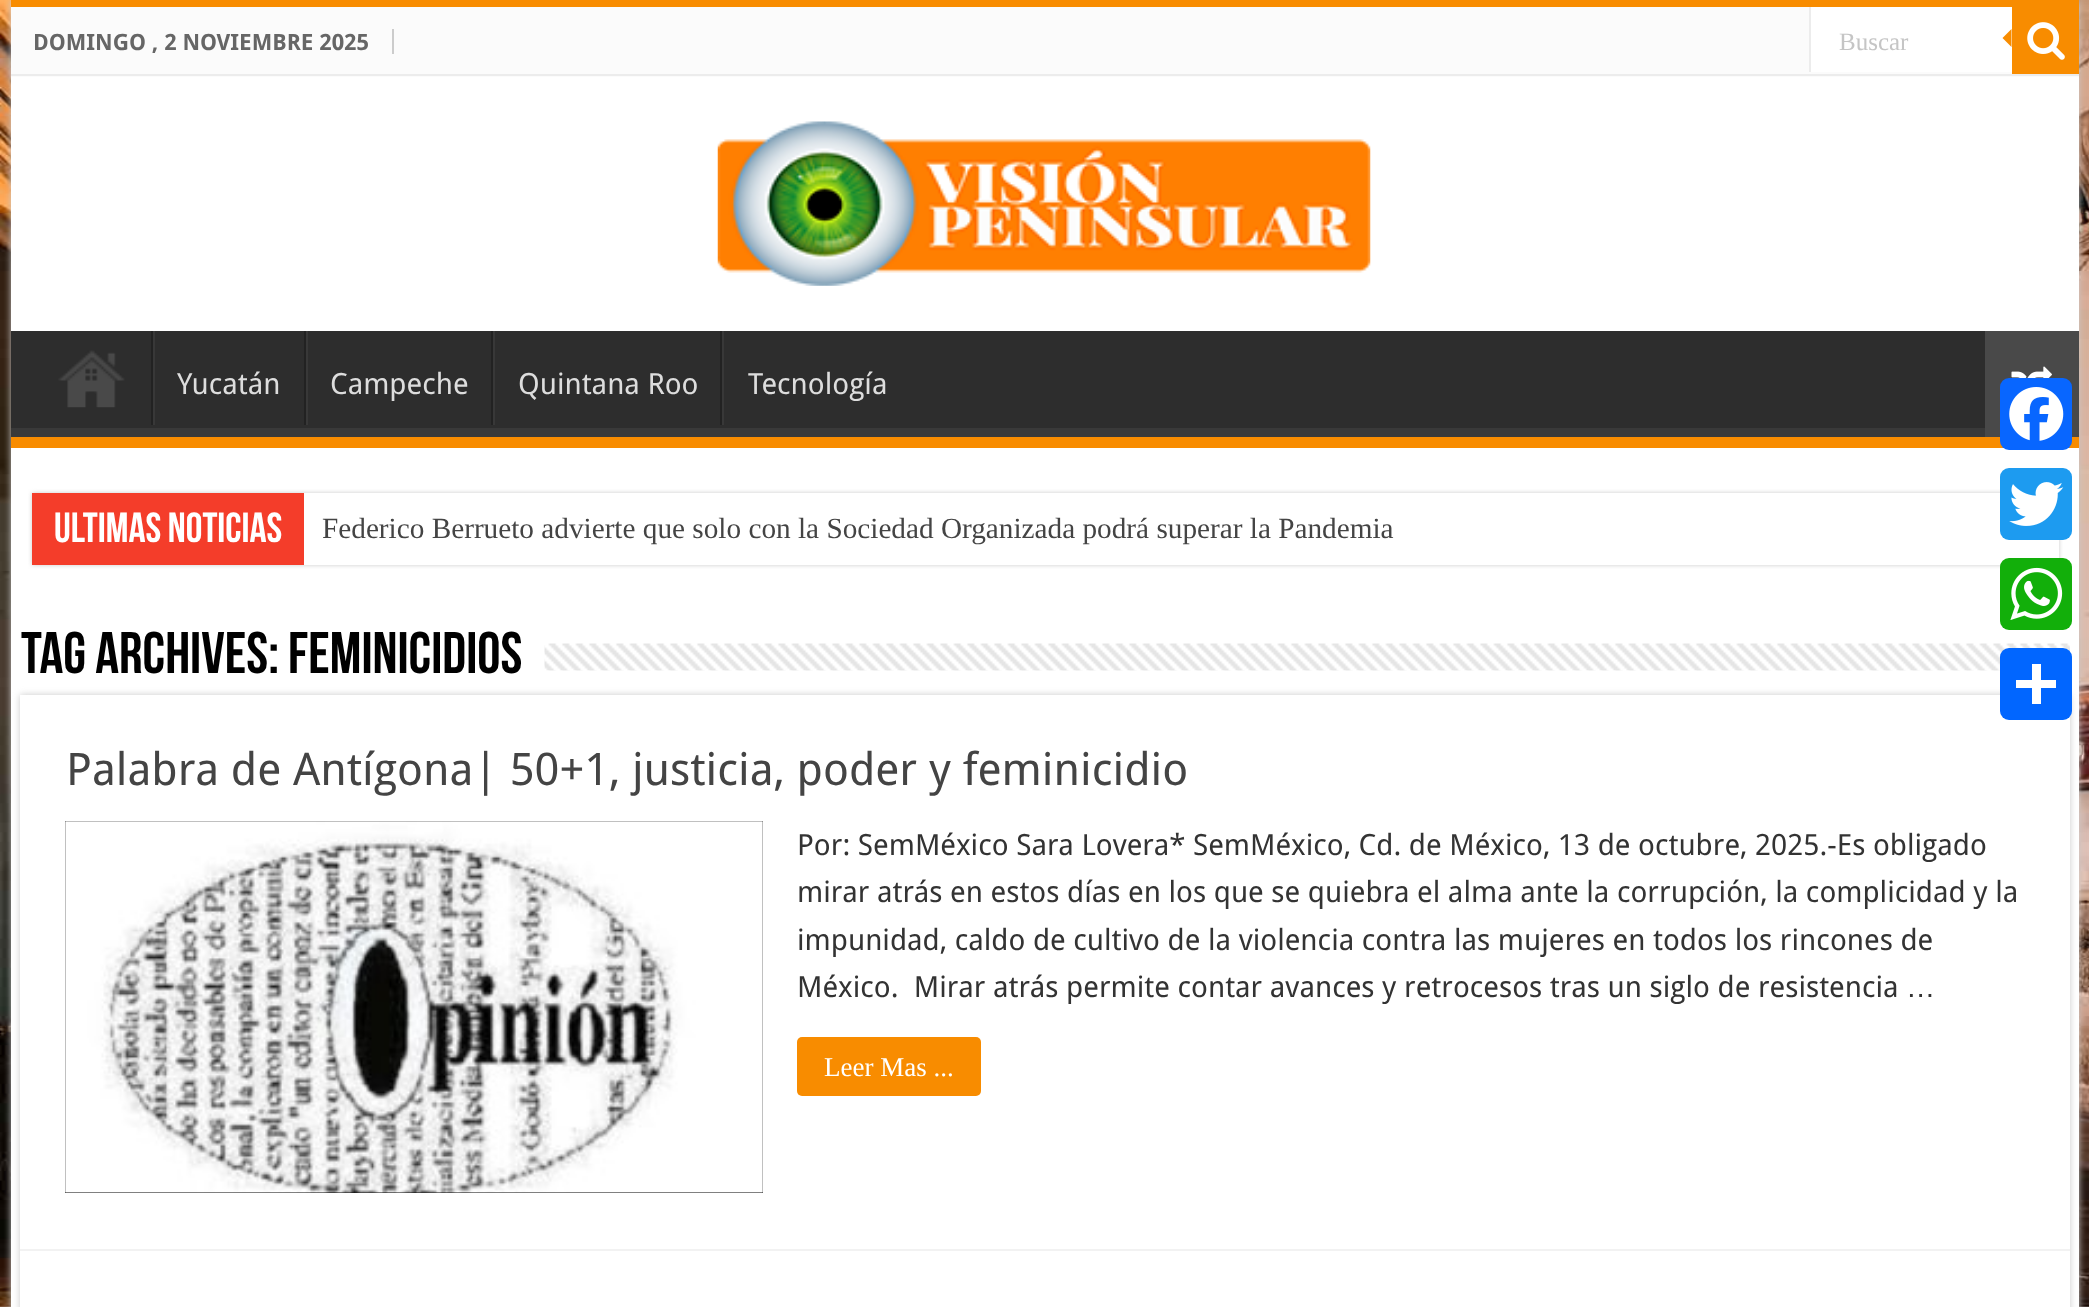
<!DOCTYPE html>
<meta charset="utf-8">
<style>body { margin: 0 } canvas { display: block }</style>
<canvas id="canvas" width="2089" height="1307"></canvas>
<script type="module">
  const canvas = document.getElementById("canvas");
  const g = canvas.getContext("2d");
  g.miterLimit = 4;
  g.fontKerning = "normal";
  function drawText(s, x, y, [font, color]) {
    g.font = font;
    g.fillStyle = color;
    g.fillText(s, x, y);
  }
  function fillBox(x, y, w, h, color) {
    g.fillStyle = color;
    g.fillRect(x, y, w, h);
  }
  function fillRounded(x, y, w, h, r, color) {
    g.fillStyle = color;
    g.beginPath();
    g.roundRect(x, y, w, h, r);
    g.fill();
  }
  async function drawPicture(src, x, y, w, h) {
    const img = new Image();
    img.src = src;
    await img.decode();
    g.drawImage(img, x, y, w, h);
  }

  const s1 = ["bold 22.5px Droid Sans", "#666666"];
  const s2 = ["25px Liberation Serif", "#C5C5C5"];
  const s3 = ["29.25px Droid Sans", "#DDDDDD"];
  const s4 = ["bold 42px Bebas Neue", "#FFFFFF"];
  const s5 = ["29.25px Liberation Serif", "#444444"];
  const s6 = ["bold 58.5px Bebas Neue", "#000000"];
  const s7 = ["45px Droid Sans", "#444444"];
  const s8 = ["29.25px Droid Sans", "#333333"];
  const s9 = ["29.25px Liberation Sans", "#333333"];
  const s10 = ["27px Liberation Serif", "#FFFFFF"];

  fillBox(0, 0, 2089, 1307, "#FFFFFF");
  await drawPicture("pic1.png", 0, 1306, 2089, 1);
  await drawPicture("pic2.png", 0, 0, 2089, 1307);
  g.fillStyle = "#CACACA";
  g.filter = "blur(3.5px)";
  g.beginPath();
  g.rect(11, 0, 2068, 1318);
  g.fill();
  g.filter = "none";
  fillBox(11, 77, 2068, 1230, "#FFFFFF");
  fillBox(11, 0, 2068, 7, "#F88C00");
  fillBox(11, 7, 2068, 70, "#FBFBFB");
  fillBox(11, 74, 2068, 2, "#ECECEC");
  fillBox(392, 29, 2, 25, "#CCCCCC");
  drawText("DOMINGO , 2 NOVIEMBRE 2025", 33, 50, s1);
  fillBox(1811, 7, 201, 65, "#FFFFFF");
  fillBox(1809, 7, 2, 65, "#ECECEC");
  drawText("Buscar", 1839, 50, s2);
  fillBox(2012, 7, 67, 67, "#F88C00");
  await drawPicture("pic3.png", 2027, 22, 38, 38);
  g.beginPath();
  g.moveTo(2011.5, 29);
  g.lineTo(2011.5, 47);
  g.lineTo(2002.5, 38);
  g.closePath();
  g.fill();
  await drawPicture("pic4.png", 717, 121, 654, 165);
  fillBox(11, 331, 1974, 97, "#2D2D2D");
  g.save();
  g.beginPath();
  g.rect(11, 331, 2068, 106);
  g.clip();
  g.fillStyle = "#393939";
  g.beginPath();
  g.moveTo(-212, 108);
  g.lineTo(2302, 108);
  g.lineTo(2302, 659);
  g.lineTo(-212, 659);
  g.closePath();
  g.moveTo(9, 317);
  g.lineTo(2077, 317);
  g.bezierCurveTo(2078, 317, 2079, 318, 2079, 320);
  g.lineTo(2079, 425);
  g.bezierCurveTo(2079, 426, 2078, 428, 2077, 428);
  g.lineTo(9, 428);
  g.bezierCurveTo(8, 428, 7, 426, 7, 425);
  g.lineTo(7, 320);
  g.bezierCurveTo(7, 318, 8, 317, 9, 317);
  g.closePath();
  g.fill("evenodd");
  g.restore();
  fillBox(11, 437, 2068, 11, "#F88C00");
  await drawPicture("pic5.png", 58, 350, 67, 58);
  fillBox(151, 331, 2, 94, "#222222");
  fillBox(153, 331, 2, 94, "#383838");
  drawText("Yucatán", 177, 394, s3);
  fillBox(304, 331, 2, 94, "#222222");
  fillBox(306, 331, 2, 94, "#383838");
  drawText("Campeche", 330, 394, s3);
  fillBox(491, 331, 2, 94, "#222222");
  fillBox(493, 331, 2, 94, "#383838");
  drawText("Quintana Roo", 518, 394, s3);
  fillBox(720, 331, 2, 94, "#222222");
  fillBox(722, 331, 2, 94, "#383838");
  drawText("Tecnología", 748, 394, s3);
  fillBox(1985, 331, 94, 106, "#494949");
  await drawPicture("pic6.png", 2011, 366, 41, 12);
  g.fillStyle = "#CACACA";
  g.filter = "blur(2px)";
  g.beginPath();
  g.rect(32, 493, 2027, 72);
  g.fill();
  g.filter = "none";
  fillBox(304, 493, 1755, 72, "#FFFFFF");
  fillBox(32, 493, 272, 72, "#F43D2A");
  drawText("Ultimas Noticias", 54, 542, s4);
  drawText("Federico Berrueto advierte que solo con la Sociedad Organizada podrá superar la Pandemia", 322, 538, s5);
  drawText("Tag Archives: Feminicidios", 21, 673, s6);
  await drawPicture("pic7.png", 544, 643, 1526, 28);
  g.fillStyle = "#CACACA";
  g.filter = "blur(3.5px)";
  g.beginPath();
  g.rect(20, 695, 2050, 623);
  g.fill();
  g.filter = "none";
  fillBox(20, 695, 2050, 612, "#FFFFFF");
  fillBox(20, 1249, 2050, 2, "#F2F2F2");
  drawText("Palabra de Antígona| 50+1, justicia, poder y feminicidio", 66, 785, s7);
  fillBox(65, 821, 698, 372, "#000000");
  await drawPicture("pic8.png", 65, 821, 698, 372);
  drawText("Por: SemMéxico Sara Lovera* SemMéxico, Cd. de México, 13 de octubre, 2025.-Es obligado", 797, 855, s8);
  drawText("mirar atrás en estos días en los que se quiebra el alma ante la corrupción, la complicidad y la", 797, 902, s8);
  drawText("impunidad, caldo de cultivo de la violencia contra las mujeres en todos los rincones de", 797, 950, s8);
  drawText("México.  Mirar atrás permite contar avances y retrocesos tras un siglo de resistencia", 797, 997, s8);
  drawText("…", 1906, 997, s9);
  fillRounded(797, 1037, 184, 59, 5, "#F88C00");
  drawText("Leer Mas ...", 824, 1076, s10);
  fillRounded(2000, 378, 72, 72, 9, "#0866FF");
  await drawPicture("pic9.png", 2009, 387, 55, 54);
  fillRounded(2000, 468, 72, 72, 9, "#1D9BF0");
  await drawPicture("pic10.png", 2009, 482, 55, 44);
  fillRounded(2000, 558, 72, 72, 9, "#12AF0A");
  await drawPicture("pic11.png", 2010, 567, 53, 53);
  fillRounded(2000, 648, 72, 72, 9, "#0166FF");
  fillBox(2032, 664, 9, 40, "#FFFFFF");
  fillBox(2016, 680, 40, 8, "#FFFFFF");
</script>
